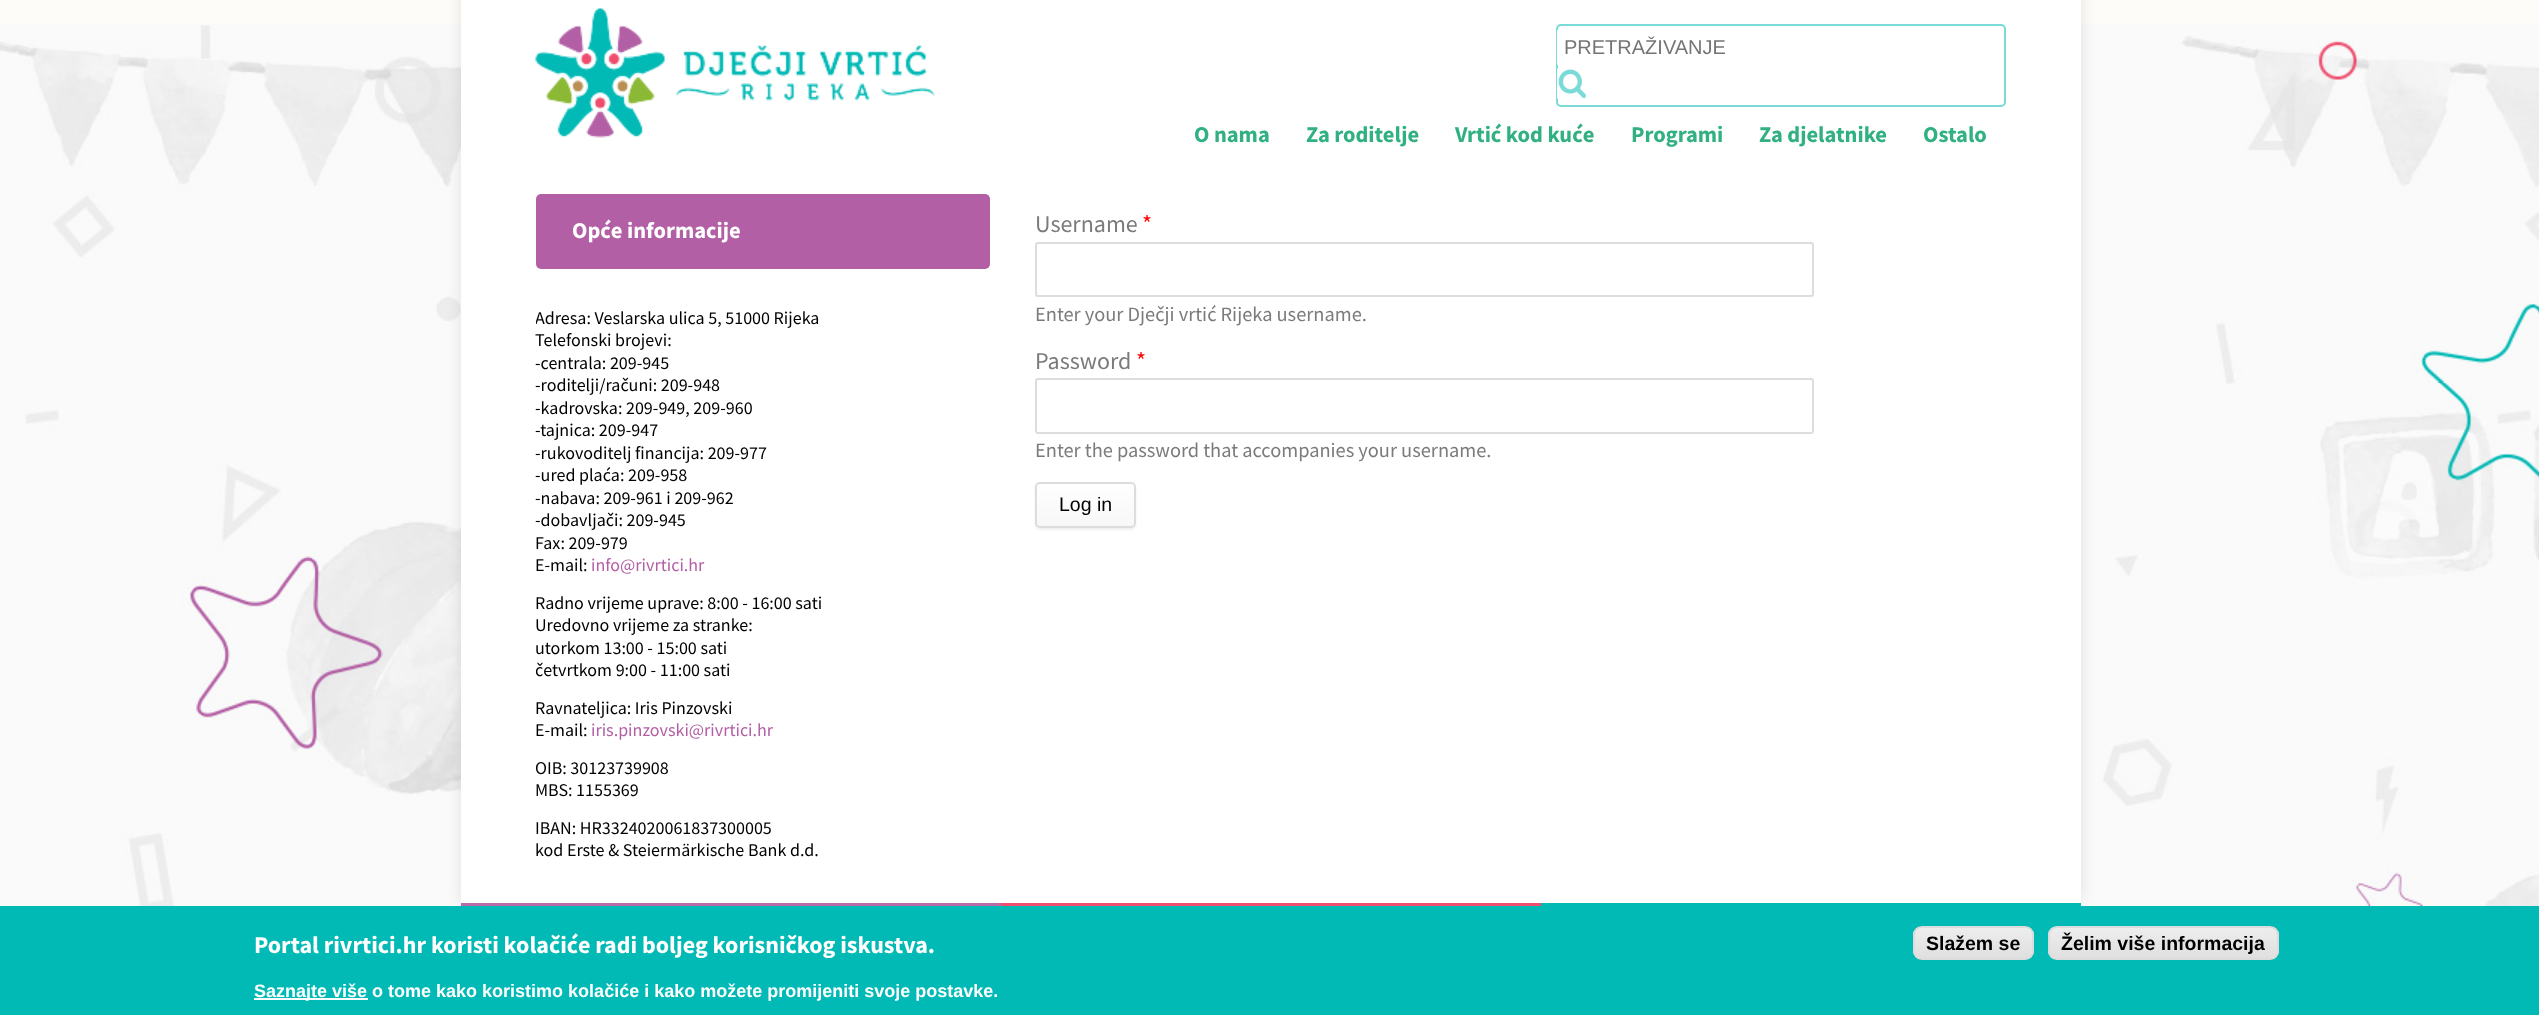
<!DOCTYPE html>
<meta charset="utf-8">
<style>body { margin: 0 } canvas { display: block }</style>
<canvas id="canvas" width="2539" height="1015"></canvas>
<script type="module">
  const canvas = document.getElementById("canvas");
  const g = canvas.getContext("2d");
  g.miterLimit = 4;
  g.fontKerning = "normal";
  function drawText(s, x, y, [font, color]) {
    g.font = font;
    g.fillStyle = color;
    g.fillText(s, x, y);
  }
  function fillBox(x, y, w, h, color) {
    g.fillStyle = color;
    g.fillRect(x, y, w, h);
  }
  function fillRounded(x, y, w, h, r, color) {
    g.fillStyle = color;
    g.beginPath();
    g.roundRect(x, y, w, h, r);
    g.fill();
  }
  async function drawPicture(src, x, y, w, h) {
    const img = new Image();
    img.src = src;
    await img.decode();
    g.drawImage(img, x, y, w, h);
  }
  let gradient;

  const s1 = ["20px Liberation Sans", "#757575"];
  const s2 = ["bold 22.5px Source Sans Pro", "#31B081"];
  const s3 = ["bold 22.5px Source Sans Pro", "#FFFFFF"];
  const s4 = ["18px Source Sans Pro", "#000000"];
  const s5 = ["18px Source Sans Pro", "#B35FA5"];
  const s6 = ["24px Source Sans Pro", "#7B7B7B"];
  const s7 = ["24px Source Sans Pro", "#FF0000"];
  const s8 = ["20.4px Source Sans Pro", "#7B7B7B"];
  const s9 = ["19.5px Liberation Sans", "#000000"];
  const s10 = ["bold 24px Source Sans Pro", "#FFFFFF"];
  const s11 = ["bold 18px Liberation Sans", "#FFFFFF"];
  const s12 = ["bold 19.5px Liberation Sans", "#000000"];

  fillBox(0, 0, 2539, 1015, "#FDFCF9");
  await drawPicture("pic1.png", 0, 24, 2539, 882);
  g.fillStyle = "rgba(0, 0, 0, 0.1)";
  g.filter = "blur(7.5px)";
  g.beginPath();
  g.rect(461, -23, 1620, 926);
  g.fill();
  g.filter = "none";
  fillBox(461, 0, 1620, 903, "#FFFFFF");
  await drawPicture("pic2.png", 535, 8, 400, 130);
  g.beginPath();
  g.roundRect(1557, 25, 448, 81, 4);
  g.strokeStyle = "#79DAD8";
  g.lineWidth = 2;
  g.stroke();
  fillRounded(1557, 29, 447, 37, 3, "#FFFFFF");
  drawText("PRETRAŽIVANJE", 1564, 54, s1);
  await drawPicture("pic3.png", 1557, 68, 30, 31);
  drawText("O nama", 1194, 142, s2);
  drawText("Za roditelje", 1306, 142, s2);
  drawText("Vrtić kod kuće", 1455, 142, s2);
  drawText("Programi", 1631, 142, s2);
  drawText("Za djelatnike", 1759, 142, s2);
  drawText("Ostalo", 1923, 142, s2);
  fillRounded(536, 194, 454, 75, 5, "#B35FA5");
  drawText("Opće informacije", 572, 238, s3);
  g.save();
  g.beginPath();
  g.rect(536, 194, 1470, 682);
  g.clip();
  drawText("Adresa: Veslarska ulica 5, 51000 Rijeka", 535, 324, s4);
  g.restore();
  drawText("Telefonski brojevi:", 535, 346, s4);
  drawText("-centrala: 209-945", 535, 369, s4);
  drawText("-roditelji/računi: 209-948", 535, 391, s4);
  drawText("-kadrovska: 209-949, 209-960", 535, 414, s4);
  drawText("-tajnica: 209-947", 535, 436, s4);
  drawText("-rukovoditelj financija: 209-977", 535, 459, s4);
  drawText("-ured plaća: 209-958", 535, 481, s4);
  drawText("-nabava: 209-961 i 209-962", 535, 504, s4);
  drawText("-dobavljači: 209-945", 535, 526, s4);
  drawText("Fax: 209-979", 535, 549, s4);
  drawText("E-mail:", 535, 571, s4);
  drawText("info@rivrtici.hr", 591, 571, s5);
  drawText("Radno vrijeme uprave: 8:00 - 16:00 sati", 535, 609, s4);
  drawText("Uredovno vrijeme za stranke:", 535, 631, s4);
  drawText("utorkom 13:00 - 15:00 sati", 535, 654, s4);
  g.save();
  g.beginPath();
  g.rect(536, 194, 1470, 682);
  g.clip();
  drawText("četvrtkom 9:00 - 11:00 sati", 535, 676, s4);
  g.restore();
  drawText("Ravnateljica: Iris Pinzovski", 535, 714, s4);
  drawText("E-mail:", 535, 736, s4);
  drawText("iris.pinzovski@rivrtici.hr", 591, 736, s5);
  g.save();
  g.beginPath();
  g.rect(536, 194, 1470, 682);
  g.clip();
  drawText("OIB: 30123739908", 535, 774, s4);
  g.restore();
  drawText("MBS: 1155369", 535, 796, s4);
  drawText("IBAN: HR3324020061837300005", 535, 834, s4);
  drawText("kod Erste & Steiermärkische Bank d.d.", 535, 856, s4);
  drawText("Username", 1035, 232, s6);
  drawText("*", 1142, 232, s7);
  g.beginPath();
  g.roundRect(1036, 243, 777, 53, 2);
  g.strokeStyle = "#DDDDDD";
  g.stroke();
  drawText("Enter your Dječji vrtić Rijeka username.", 1035, 321, s8);
  drawText("Password", 1035, 369, s6);
  drawText("*", 1136, 369, s7);
  g.beginPath();
  g.roundRect(1036, 379, 777, 54, 2);
  g.stroke();
  drawText("Enter the password that accompanies your username.", 1035, 457, s8);
  g.fillStyle = "rgba(180, 180, 180, 0.2)";
  g.filter = "blur(1px)";
  g.beginPath();
  g.roundRect(1035, 483, 101, 47, 5);
  g.fill();
  g.filter = "none";
  g.save();
  g.beginPath();
  g.roundRect(1035, 482, 101, 46, 5);
  g.clip();
  gradient = g.createLinearGradient(1085, 527, 1085, 483);
  gradient.addColorStop(0, "#F7F7F7");
  gradient.addColorStop(1, "#FFFFFF");
  g.fillStyle = gradient;
  g.fillRect(1035, 483, 101, 44);
  g.restore();
  g.beginPath();
  g.roundRect(1036, 483, 99, 44, 4);
  g.stroke();
  drawText("Log in", 1059, 511, s9);
  fillBox(461, 903, 540, 3, "#B86AAB");
  fillBox(1001, 903, 540, 3, "#EF4D6E");
  fillBox(1541, 903, 540, 3, "#02B9B5");
  fillBox(0, 906, 2539, 109, "#01B9B5");
  drawText("Portal rivrtici.hr koristi kolačiće radi boljeg korisničkog iskustva.", 254, 953, s10);
  fillBox(254, 998, 114, 2, "#FFFFFF");
  drawText("Saznajte više o tome kako koristimo kolačiće i kako možete promijeniti svoje postavke.", 254, 997, s11);
  g.save();
  g.beginPath();
  g.roundRect(1913, 926, 121, 34, 9);
  g.clip();
  gradient = g.createLinearGradient(1973, 927, 1973, 959);
  gradient.addColorStop(0.05, "#EDEDED");
  gradient.addColorStop(1, "#DFDFDF");
  g.fillStyle = gradient;
  g.fillRect(1913, 927, 121, 32);
  g.restore();
  g.beginPath();
  g.moveTo(1922, 928);
  g.lineTo(2025, 928);
  g.bezierCurveTo(2029, 928, 2032, 932, 2032, 936);
  g.lineTo(2032, 952);
  g.lineTo(2031, 956);
  g.bezierCurveTo(2032, 955, 2033, 953, 2033, 951);
  g.lineTo(2033, 935);
  g.bezierCurveTo(2033, 931, 2029, 927, 2025, 927);
  g.lineTo(1922, 927);
  g.bezierCurveTo(1918, 927, 1914, 931, 1914, 935);
  g.lineTo(1914, 936);
  g.bezierCurveTo(1914, 932, 1917, 928, 1922, 928);
  g.closePath();
  g.fill();
  g.beginPath();
  g.roundRect(1914, 927, 119, 32, 8);
  g.strokeStyle = "#DCDCDC";
  g.stroke();
  drawText("Slažem se", 1926, 950, s12);
  g.save();
  g.beginPath();
  g.roundRect(2048, 926, 231, 34, 9);
  g.clip();
  gradient = g.createLinearGradient(2163, 927, 2163, 959);
  gradient.addColorStop(0.05, "#EDEDED");
  gradient.addColorStop(1, "#DFDFDF");
  g.fillStyle = gradient;
  g.fillRect(2048, 927, 231, 32);
  g.restore();
  g.beginPath();
  g.roundRect(2049, 927, 229, 32, 8);
  g.stroke();
  drawText("Želim više informacija", 2061, 950, s12);
</script>
